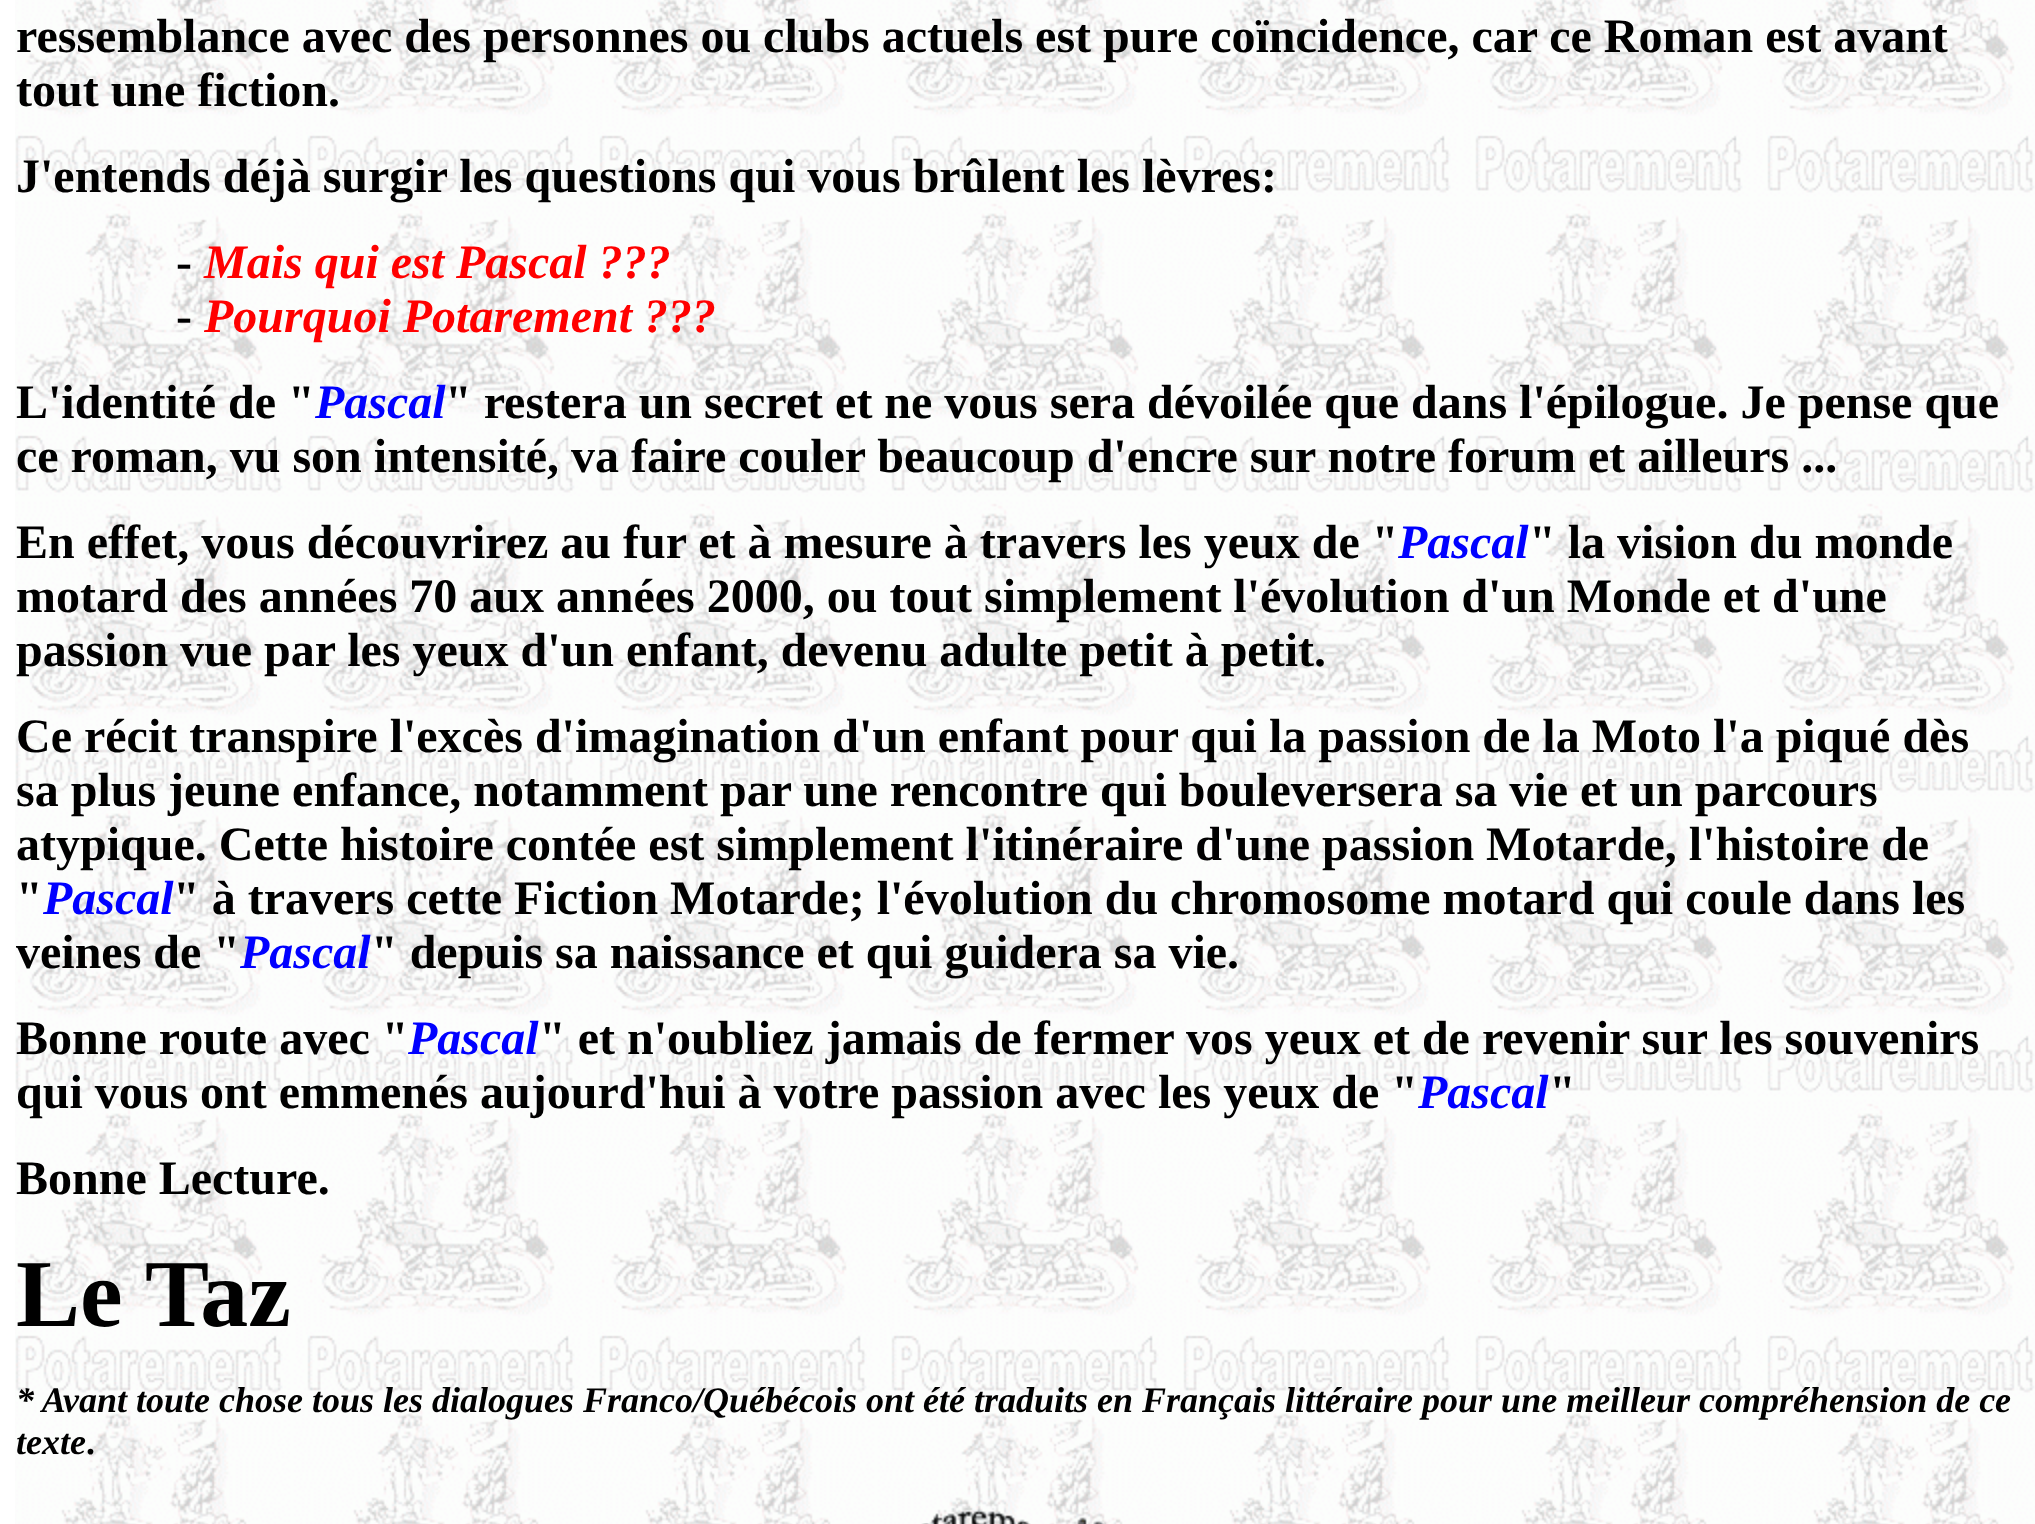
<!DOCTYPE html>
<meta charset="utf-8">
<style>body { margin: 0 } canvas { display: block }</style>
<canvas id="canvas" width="2035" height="1524"></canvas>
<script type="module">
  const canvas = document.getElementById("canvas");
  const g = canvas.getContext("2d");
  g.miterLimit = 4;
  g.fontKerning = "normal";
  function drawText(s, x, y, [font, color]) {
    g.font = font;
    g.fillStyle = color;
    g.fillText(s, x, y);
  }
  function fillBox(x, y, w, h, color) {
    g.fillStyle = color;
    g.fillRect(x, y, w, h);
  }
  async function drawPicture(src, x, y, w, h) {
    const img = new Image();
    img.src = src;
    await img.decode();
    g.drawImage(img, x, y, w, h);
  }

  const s1 = ["bold 48px Liberation Serif", "#000000"];
  const s2 = ["italic bold 48px Liberation Serif", "#FF0000"];
  const s3 = ["italic bold 48px Liberation Serif", "#0000FF"];
  const s4 = ["bold 96px Liberation Serif", "#000000"];
  const s5 = ["italic bold 36px Liberation Serif", "#000000"];
  const s6 = ["bold 36px Liberation Serif", "#000000"];

  fillBox(0, 0, 2035, 1524, "#FFFFFF");
  await drawPicture("pic1.png", 15, 0, 2020, 1524);
  drawText("ressemblance avec des personnes ou clubs actuels est pure coïncidence, car ce Roman est avant", 16, 52, s1);
  drawText("tout une fiction.", 16, 106, s1);
  drawText("J'entends déjà surgir les questions qui vous brûlent les lèvres:", 16, 192, s1);
  drawText("-", 176, 278, s1);
  drawText("Mais qui est Pascal ???", 204, 278, s2);
  drawText("-", 176, 332, s1);
  drawText("Pourquoi Potarement ???", 204, 332, s2);
  drawText("L'identité de \"", 16, 418, s1);
  drawText("Pascal", 315, 418, s3);
  drawText("\" restera un secret et ne vous sera dévoilée que dans l'épilogue. Je pense que", 445, 418, s1);
  drawText("ce roman, vu son intensité, va faire couler beaucoup d'encre sur notre forum et ailleurs ...", 16, 472, s1);
  drawText("En effet, vous découvrirez au fur et à mesure à travers les yeux de \"", 16, 558, s1);
  drawText("Pascal", 1398, 558, s3);
  drawText("\" la vision du monde", 1529, 558, s1);
  drawText("motard des années 70 aux années 2000, ou tout simplement l'évolution d'un Monde et d'une", 16, 612, s1);
  drawText("passion vue par les yeux d'un enfant, devenu adulte petit à petit.", 16, 666, s1);
  drawText("Ce récit transpire l'excès d'imagination d'un enfant pour qui la passion de la Moto l'a piqué dès", 16, 752, s1);
  drawText("sa plus jeune enfance, notamment par une rencontre qui bouleversera sa vie et un parcours", 16, 806, s1);
  drawText("atypique. Cette histoire contée est simplement l'itinéraire d'une passion Motarde, l'histoire de", 16, 860, s1);
  drawText("\"", 16, 914, s1);
  drawText("Pascal", 43, 914, s3);
  drawText("\" à travers cette Fiction Motarde; l'évolution du chromosome motard qui coule dans les", 173, 914, s1);
  drawText("veines de \"", 16, 968, s1);
  drawText("Pascal", 240, 968, s3);
  drawText("\" depuis sa naissance et qui guidera sa vie.", 371, 968, s1);
  drawText("Bonne route avec \"", 16, 1054, s1);
  drawText("Pascal", 408, 1054, s3);
  drawText("\" et n'oubliez jamais de fermer vos yeux et de revenir sur les souvenirs", 539, 1054, s1);
  drawText("qui vous ont emmenés aujourd'hui à votre passion avec les yeux de \"", 16, 1108, s1);
  drawText("Pascal", 1418, 1108, s3);
  drawText("\"", 1549, 1108, s1);
  drawText("Bonne Lecture.", 16, 1194, s1);
  drawText("Le Taz", 16, 1326, s4);
  drawText("* Avant toute chose tous les dialogues Franco/Québécois ont été traduits en Français littéraire pour une meilleur compréhension de ce", 16, 1412, s5);
  drawText("texte", 16, 1454, s5);
  drawText(".", 86, 1454, s6);
  await drawPicture("pic2.png", 921, 1509, 183, 15);
</script>
